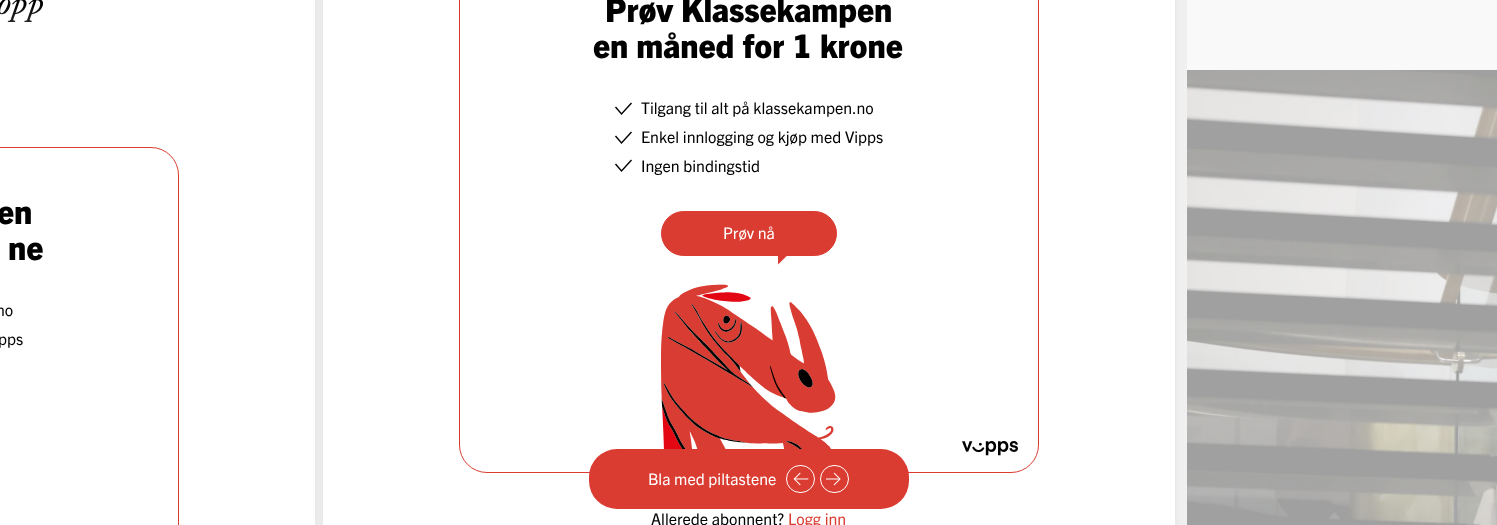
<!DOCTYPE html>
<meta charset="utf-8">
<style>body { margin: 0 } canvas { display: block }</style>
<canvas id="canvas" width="1497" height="525"></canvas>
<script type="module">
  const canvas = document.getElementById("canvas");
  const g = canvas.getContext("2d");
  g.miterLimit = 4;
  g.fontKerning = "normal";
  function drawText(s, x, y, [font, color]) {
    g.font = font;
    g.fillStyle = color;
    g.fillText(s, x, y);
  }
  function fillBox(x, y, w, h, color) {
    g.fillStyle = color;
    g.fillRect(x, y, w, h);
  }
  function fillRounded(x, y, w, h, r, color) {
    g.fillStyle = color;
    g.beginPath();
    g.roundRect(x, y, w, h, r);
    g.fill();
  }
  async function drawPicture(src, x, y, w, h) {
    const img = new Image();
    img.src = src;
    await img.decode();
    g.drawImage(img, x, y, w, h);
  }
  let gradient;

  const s1 = ["italic 29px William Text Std", "#000000"];
  const s2 = ["800 32.75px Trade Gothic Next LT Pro", "#000000"];
  const s3 = ["16px Trade Gothic Next LT Pro", "#000000"];
  const s4 = ["16px Trade Gothic Next LT Pro", "#FFFFFF"];
  const s5 = ["16px Trade Gothic Next LT Pro", "#DA3C31"];

  fillBox(0, 0, 1497, 525, "#F0F0F0");
  g.fillStyle = "rgba(0, 0, 0, 0.05)";
  g.filter = "blur(5px)";
  g.beginPath();
  g.roundRect(323, -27, 852, 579, 12);
  g.fill();
  g.filter = "none";
  fillBox(323, 0, 852, 525, "#FFFFFF");
  g.fillStyle = "rgba(0, 0, 0, 0.05)";
  g.filter = "blur(5px)";
  g.beginPath();
  g.roundRect(-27, -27, 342, 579, 12);
  g.fill();
  g.filter = "none";
  fillBox(0, 0, 315, 525, "#FFFFFF");
  drawText("opp", -3, 14, s1);
  g.beginPath();
  g.roundRect(-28.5, 147.5, 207, 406, 27.5);
  g.strokeStyle = "#DA3C31";
  g.stroke();
  gradient = g.createLinearGradient(-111, 3, -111, 147);
  gradient.addColorStop(0, "rgba(255, 255, 255, 0)");
  gradient.addColorStop(0.86, "#FFFFFF");
  g.fillStyle = gradient;
  g.fillRect(0, 6, 43, 16);
  drawText("en", -3, 224, s2);
  drawText("ne", 8, 260, s2);
  drawText("no", -4, 316, s3);
  drawText("pps", -2, 345, s3);
  g.beginPath();
  g.roundRect(459.5, -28.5, 579, 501, 27.5);
  g.stroke();
  drawText("Prøv Klassekampen", 605, 22, s2);
  drawText("en måned for 1 krone", 593, 58, s2);
  g.beginPath();
  g.moveTo(615.5, 107);
  g.lineTo(621.5, 114);
  g.lineTo(631.5, 103);
  g.moveTo(615.5, 136);
  g.lineTo(621.5, 143);
  g.lineTo(631.5, 132);
  g.strokeStyle = "#000000";
  g.lineWidth = 1.4;
  g.stroke();
  drawText("Tilgang til alt på klassekampen.no", 641, 114, s3);
  drawText("Enkel innlogging og kjøp med Vipps", 641, 143, s3);
  g.beginPath();
  g.moveTo(615.5, 164);
  g.lineTo(621.5, 171);
  g.lineTo(631.5, 160);
  g.stroke();
  drawText("Ingen bindingstid", 641, 172, s3);
  g.fillStyle = "#DA3C31";
  g.beginPath();
  g.roundRect(661.5, 211.5, 175, 44, 22);
  g.fill();
  g.strokeStyle = "#DA3C31";
  g.lineWidth = 1;
  g.stroke();
  drawText("Prøv nå", 723, 239, s4);
  g.fillStyle = "#DA3C31";
  g.beginPath();
  g.moveTo(798, 245);
  g.lineTo(778, 264.5);
  g.lineTo(778, 245);
  g.closePath();
  g.fill();
  await drawPicture("pic1.png", 661, 284, 175, 165);
  await drawPicture("pic2.png", 962, 441, 56, 15);
  drawText("Allerede abonnent?", 651, 525, s3);
  drawText("Logg inn", 788, 525, s5);
  fillBox(1187, 0, 310, 525, "#F9F9F9");
  await drawPicture("pic3.png", 1187, 70, 310, 455);
  fillRounded(589, 449, 320, 60, 28, "#DA3C31");
  drawText("Bla med piltastene", 648, 485, s4);
  g.beginPath();
  g.roundRect(786.5, 465.5, 28, 27, 13.5);
  g.strokeStyle = "#FFFFFF";
  g.stroke();
  await drawPicture("pic4.png", 793, 472, 16, 14);
  g.beginPath();
  g.roundRect(820.5, 465.5, 28, 27, 13.5);
  g.stroke();
  await drawPicture("pic5.png", 826, 472, 15, 14);
</script>
